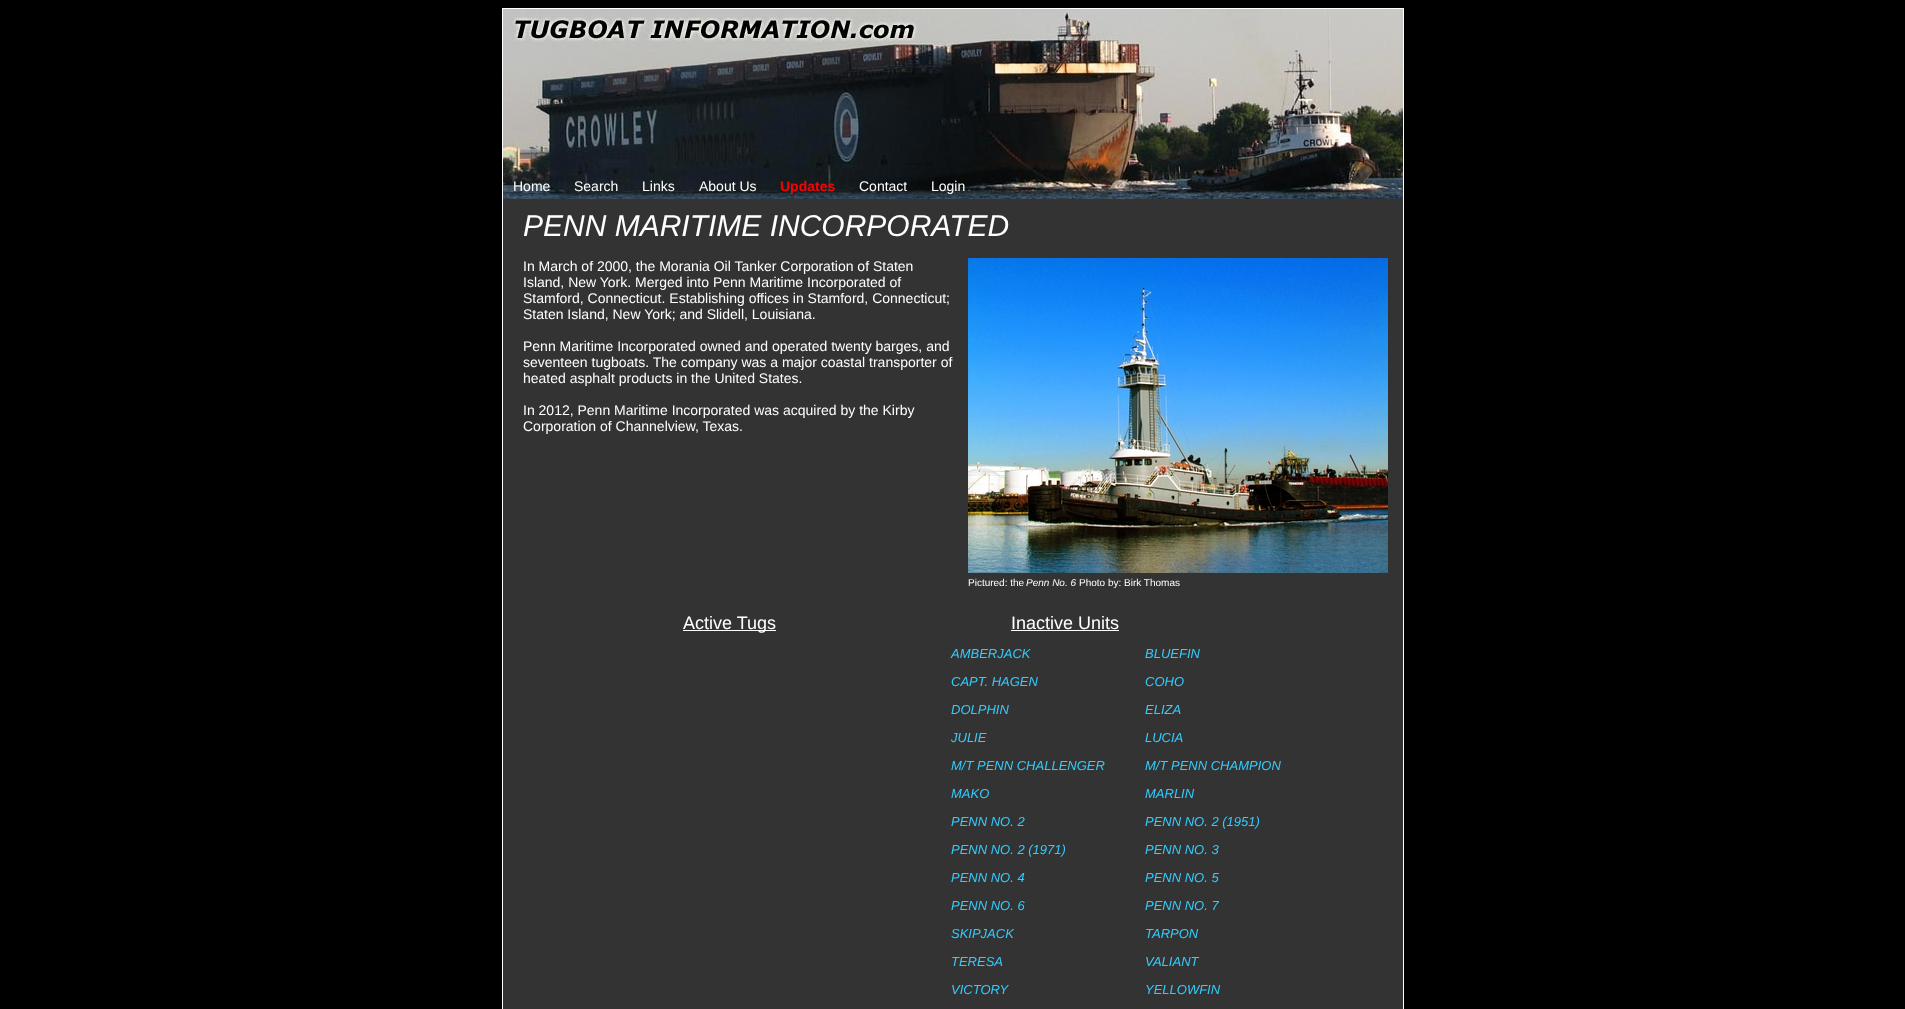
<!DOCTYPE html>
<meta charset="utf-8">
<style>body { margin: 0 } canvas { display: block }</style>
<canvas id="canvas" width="1905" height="1009"></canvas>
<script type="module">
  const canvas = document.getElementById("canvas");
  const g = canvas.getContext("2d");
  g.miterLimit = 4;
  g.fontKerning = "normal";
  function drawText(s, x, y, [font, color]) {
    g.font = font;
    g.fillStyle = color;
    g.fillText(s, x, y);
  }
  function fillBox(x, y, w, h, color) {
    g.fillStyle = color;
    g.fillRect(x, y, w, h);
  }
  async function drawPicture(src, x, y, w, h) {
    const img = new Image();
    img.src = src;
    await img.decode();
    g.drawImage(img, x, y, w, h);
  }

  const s1 = ["14px Liberation Sans", "#FFFFFF"];
  const s2 = ["bold 14px Liberation Sans", "#FF0000"];
  const s3 = ["italic 30px Liberation Sans", "#FFFFFF"];
  const s4 = ["10px Liberation Sans", "#FFFFFF"];
  const s5 = ["italic 10px Liberation Sans", "#FFFFFF"];
  const s6 = ["18px Liberation Sans", "#FFFFFF"];
  const s7 = ["italic 13px Liberation Sans", "#33CCFF"];

  fillBox(0, 0, 1905, 1009, "#000000");
  await drawPicture("pic1.png", 503, 9, 900, 190);
  fillBox(502, 8, 902, 1, "#FFFFFF");
  fillBox(1403, 8, 1, 191, "#FFFFFF");
  fillBox(502, 8, 1, 191, "#FFFFFF");
  drawText("Home", 513, 191, s1);
  drawText("Search", 574, 191, s1);
  drawText("Links", 642, 191, s1);
  drawText("About Us", 699, 191, s1);
  drawText("Updates", 780, 191, s2);
  drawText("Contact", 859, 191, s1);
  drawText("Login", 931, 191, s1);
  fillBox(503, 199, 900, 810, "#333333");
  fillBox(1403, 199, 1, 810, "#FFFFFF");
  fillBox(502, 199, 1, 810, "#FFFFFF");
  drawText("PENN MARITIME INCORPORATED", 523, 236, s3);
  drawText("In March of 2000, the Morania Oil Tanker Corporation of Staten", 523, 271, s1);
  drawText("Island, New York. Merged into Penn Maritime Incorporated of", 523, 287, s1);
  drawText("Stamford, Connecticut. Establishing offices in Stamford, Connecticut;", 523, 303, s1);
  drawText("Staten Island, New York; and Slidell, Louisiana.", 523, 319, s1);
  drawText("Penn Maritime Incorporated owned and operated twenty barges, and", 523, 351, s1);
  drawText("seventeen tugboats. The company was a major coastal transporter of", 523, 367, s1);
  drawText("heated asphalt products in the United States.", 523, 383, s1);
  drawText("In 2012, Penn Maritime Incorporated was acquired by the Kirby", 523, 415, s1);
  drawText("Corporation of Channelview, Texas.", 523, 431, s1);
  await drawPicture("pic2.png", 968, 258, 420, 315);
  drawText("Pictured: the", 968, 586, s4);
  drawText("Penn No. 6", 1026, 586, s5);
  drawText("Photo by: Birk Thomas", 1079, 586, s4);
  fillBox(683, 630, 93, 1, "#FFFFFF");
  drawText("Active Tugs", 683, 629, s6);
  drawText("Inactive Units", 1011, 629, s6);
  fillBox(1011, 630, 108, 1, "#FFFFFF");
  drawText("AMBERJACK", 951, 658, s7);
  drawText("BLUEFIN", 1145, 658, s7);
  drawText("CAPT. HAGEN", 951, 686, s7);
  drawText("COHO", 1145, 686, s7);
  drawText("DOLPHIN", 951, 714, s7);
  drawText("ELIZA", 1145, 714, s7);
  drawText("JULIE", 951, 742, s7);
  drawText("LUCIA", 1145, 742, s7);
  drawText("M/T PENN CHALLENGER", 951, 770, s7);
  drawText("M/T PENN CHAMPION", 1145, 770, s7);
  drawText("MAKO", 951, 798, s7);
  drawText("MARLIN", 1145, 798, s7);
  drawText("PENN NO. 2", 951, 826, s7);
  drawText("PENN NO. 2 (1951)", 1145, 826, s7);
  drawText("PENN NO. 2 (1971)", 951, 854, s7);
  drawText("PENN NO. 3", 1145, 854, s7);
  drawText("PENN NO. 4", 951, 882, s7);
  drawText("PENN NO. 5", 1145, 882, s7);
  drawText("PENN NO. 6", 951, 910, s7);
  drawText("PENN NO. 7", 1145, 910, s7);
  drawText("SKIPJACK", 951, 938, s7);
  drawText("TARPON", 1145, 938, s7);
  drawText("TERESA", 951, 966, s7);
  drawText("VALIANT", 1145, 966, s7);
  drawText("VICTORY", 951, 994, s7);
  drawText("YELLOWFIN", 1145, 994, s7);
</script>
